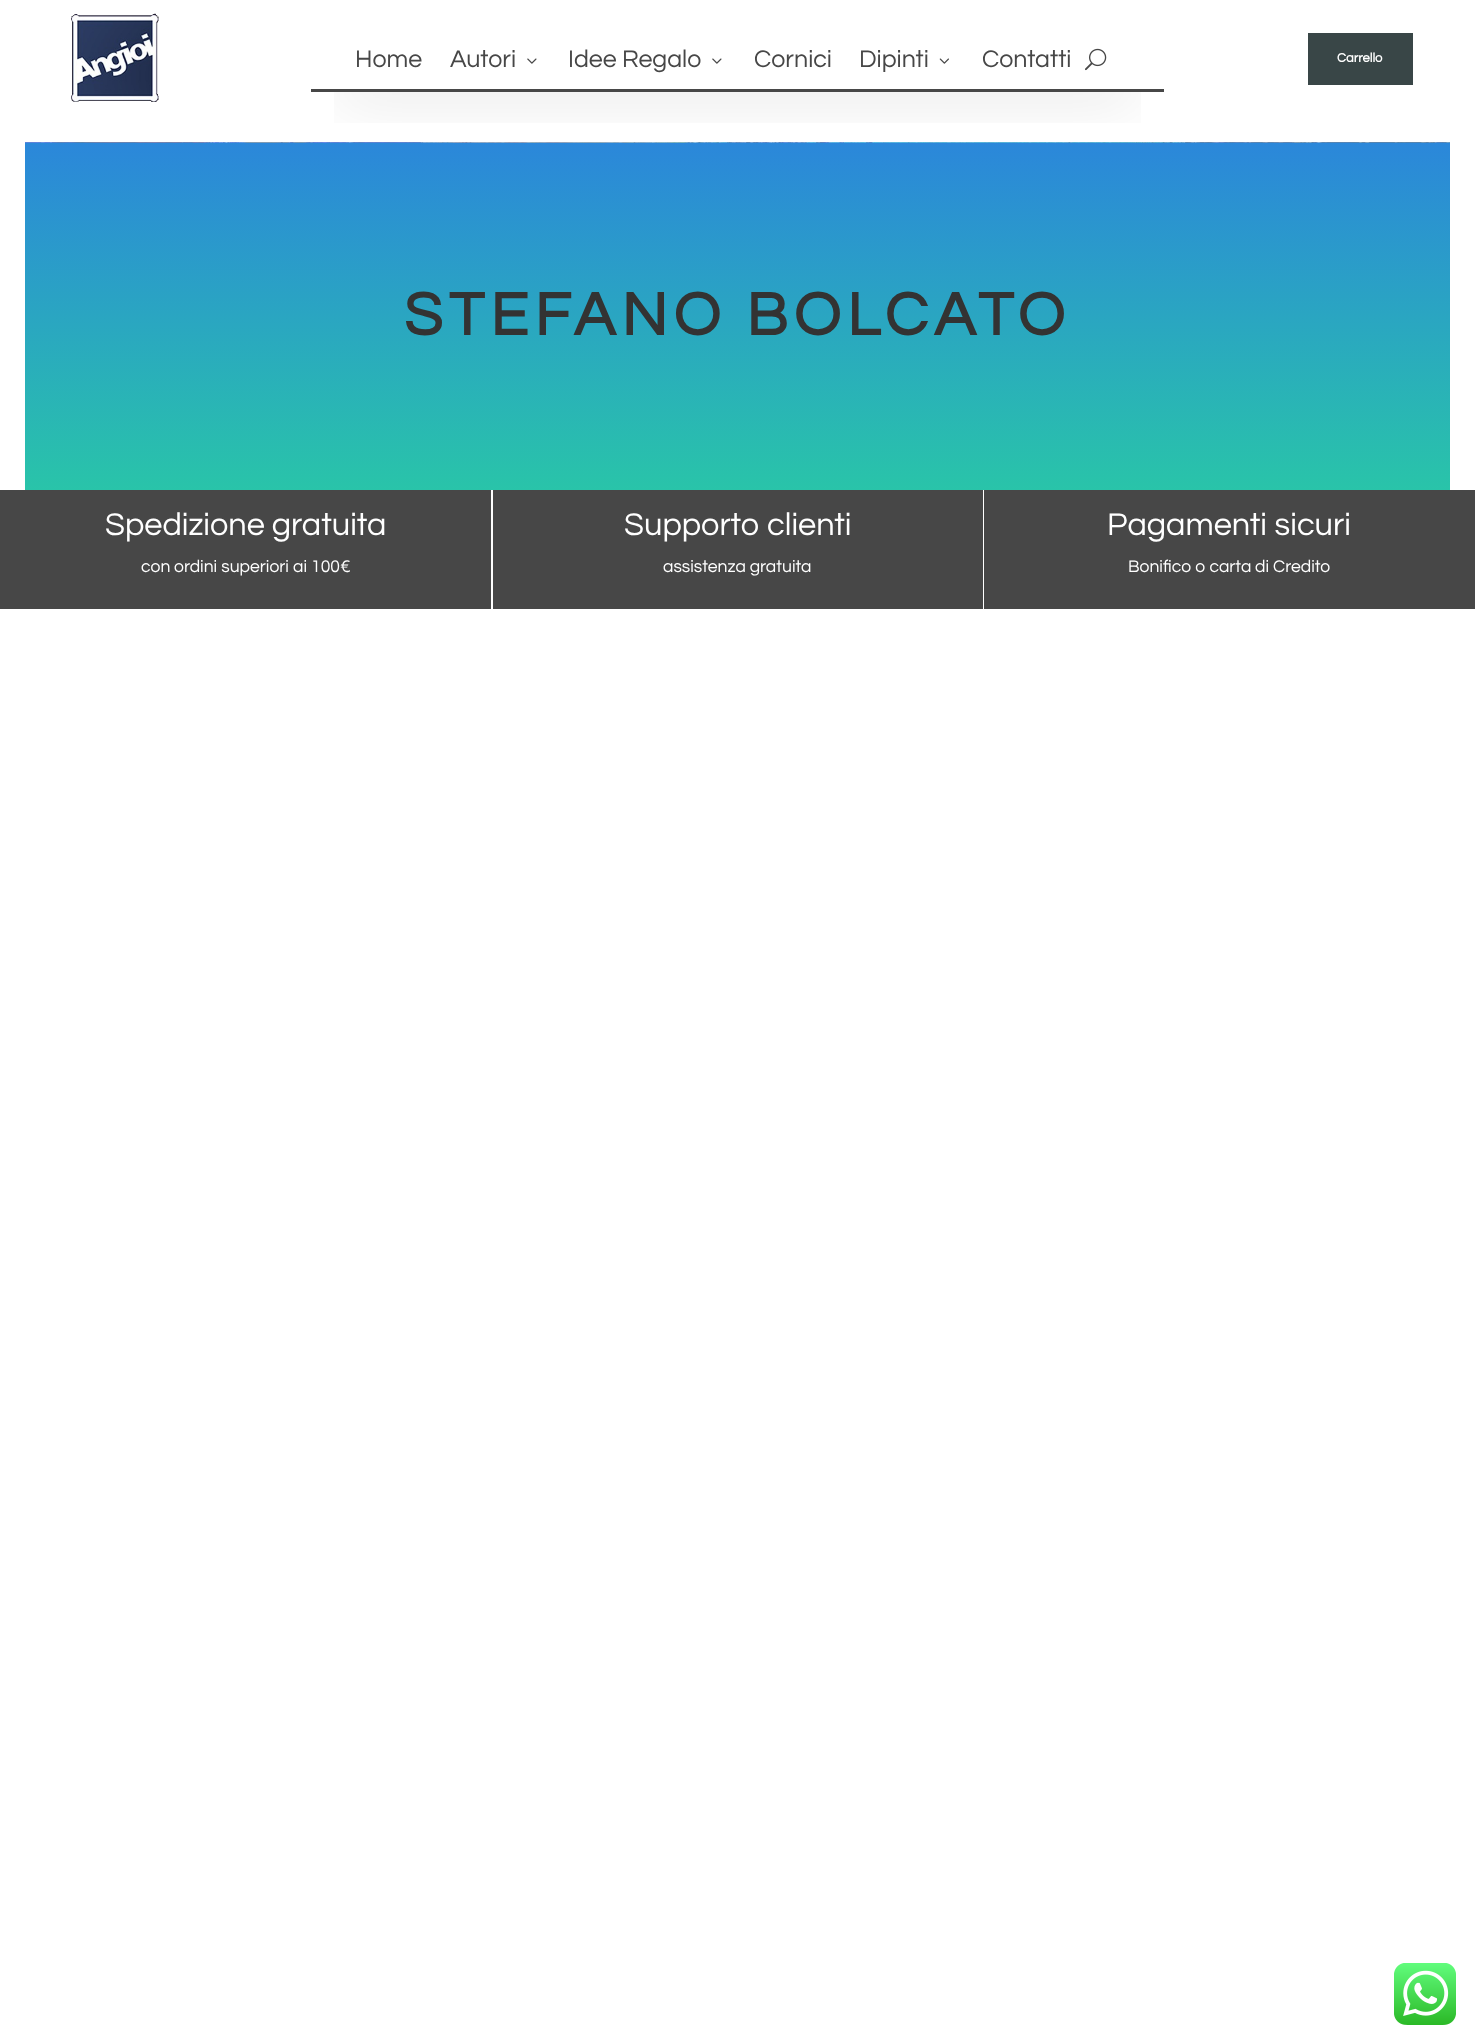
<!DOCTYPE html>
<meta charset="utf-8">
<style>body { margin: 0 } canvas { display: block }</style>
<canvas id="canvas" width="1475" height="2043"></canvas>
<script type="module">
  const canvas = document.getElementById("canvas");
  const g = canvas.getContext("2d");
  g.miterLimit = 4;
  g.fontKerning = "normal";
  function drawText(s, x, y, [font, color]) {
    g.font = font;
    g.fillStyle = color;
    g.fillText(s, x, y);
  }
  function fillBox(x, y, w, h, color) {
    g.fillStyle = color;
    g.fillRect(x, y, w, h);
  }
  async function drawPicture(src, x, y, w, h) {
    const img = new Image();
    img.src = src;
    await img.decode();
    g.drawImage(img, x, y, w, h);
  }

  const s1 = ["25px Questrial", "#474747"];
  const s2 = ["bold 13px Questrial", "#FFFFFF"];
  const s3 = ["bold 62.5px Questrial", "#333333"];
  const s4 = ["32.5px Questrial", "#FFFFFF"];
  const s5 = ["17.5px Questrial", "#FFFFFF"];

  fillBox(0, 0, 1475, 2043, "#FFFFFF");
  await drawPicture("pic1.png", 71, 13, 88, 89);
  await drawPicture("pic5.png", 25, 142, 1425, 348);
  g.save();
  g.beginPath();
  g.rect(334, 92, 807, 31);
  g.clip();
  g.fillStyle = "rgba(0, 0, 0, 0.23)";
  g.filter = "blur(31px)";
  g.beginPath();
  g.rect(336, 76, 803, 15);
  g.fill();
  g.filter = "none";
  g.restore();
  fillBox(311, 89, 853, 3, "#474747");
  drawText("Home", 355, 67, s1);
  drawText("Autori", 450, 67, s1);
  await drawPicture("pic2.png", 527, 58, 10, 6);
  drawText("Idee Regalo", 568, 67, s1);
  await drawPicture("pic2.png", 712, 58, 10, 6);
  drawText("Cornici", 754, 67, s1);
  drawText("Dipinti", 859, 67, s1);
  await drawPicture("pic3.png", 939, 58, 10, 6);
  drawText("Contatti", 982, 67, s1);
  await drawPicture("pic4.png", 1085, 48, 22, 23);
  fillBox(1308, 33, 105, 52, "#394647");
  drawText("Carrello", 1337, 62, s2);
  g.letterSpacing = "6.25px";
  drawText("STEFANO BOLCATO", 404, 335, s3);
  fillBox(0, 490, 491, 119, "#474747");
  g.letterSpacing = "0px";
  drawText("Spedizione gratuita", 105, 535, s4);
  drawText("con ordini superiori ai 100€", 141, 572, s5);
  fillBox(493, 490, 490, 119, "#474747");
  drawText("Supporto clienti", 624, 535, s4);
  drawText("assistenza gratuita", 663, 572, s5);
  fillBox(984, 490, 491, 119, "#474747");
  drawText("Pagamenti sicuri", 1107, 535, s4);
  drawText("Bonifico o carta di Credito", 1128, 572, s5);
  await drawPicture("pic6.png", 1394, 1963, 62, 62);
</script>
